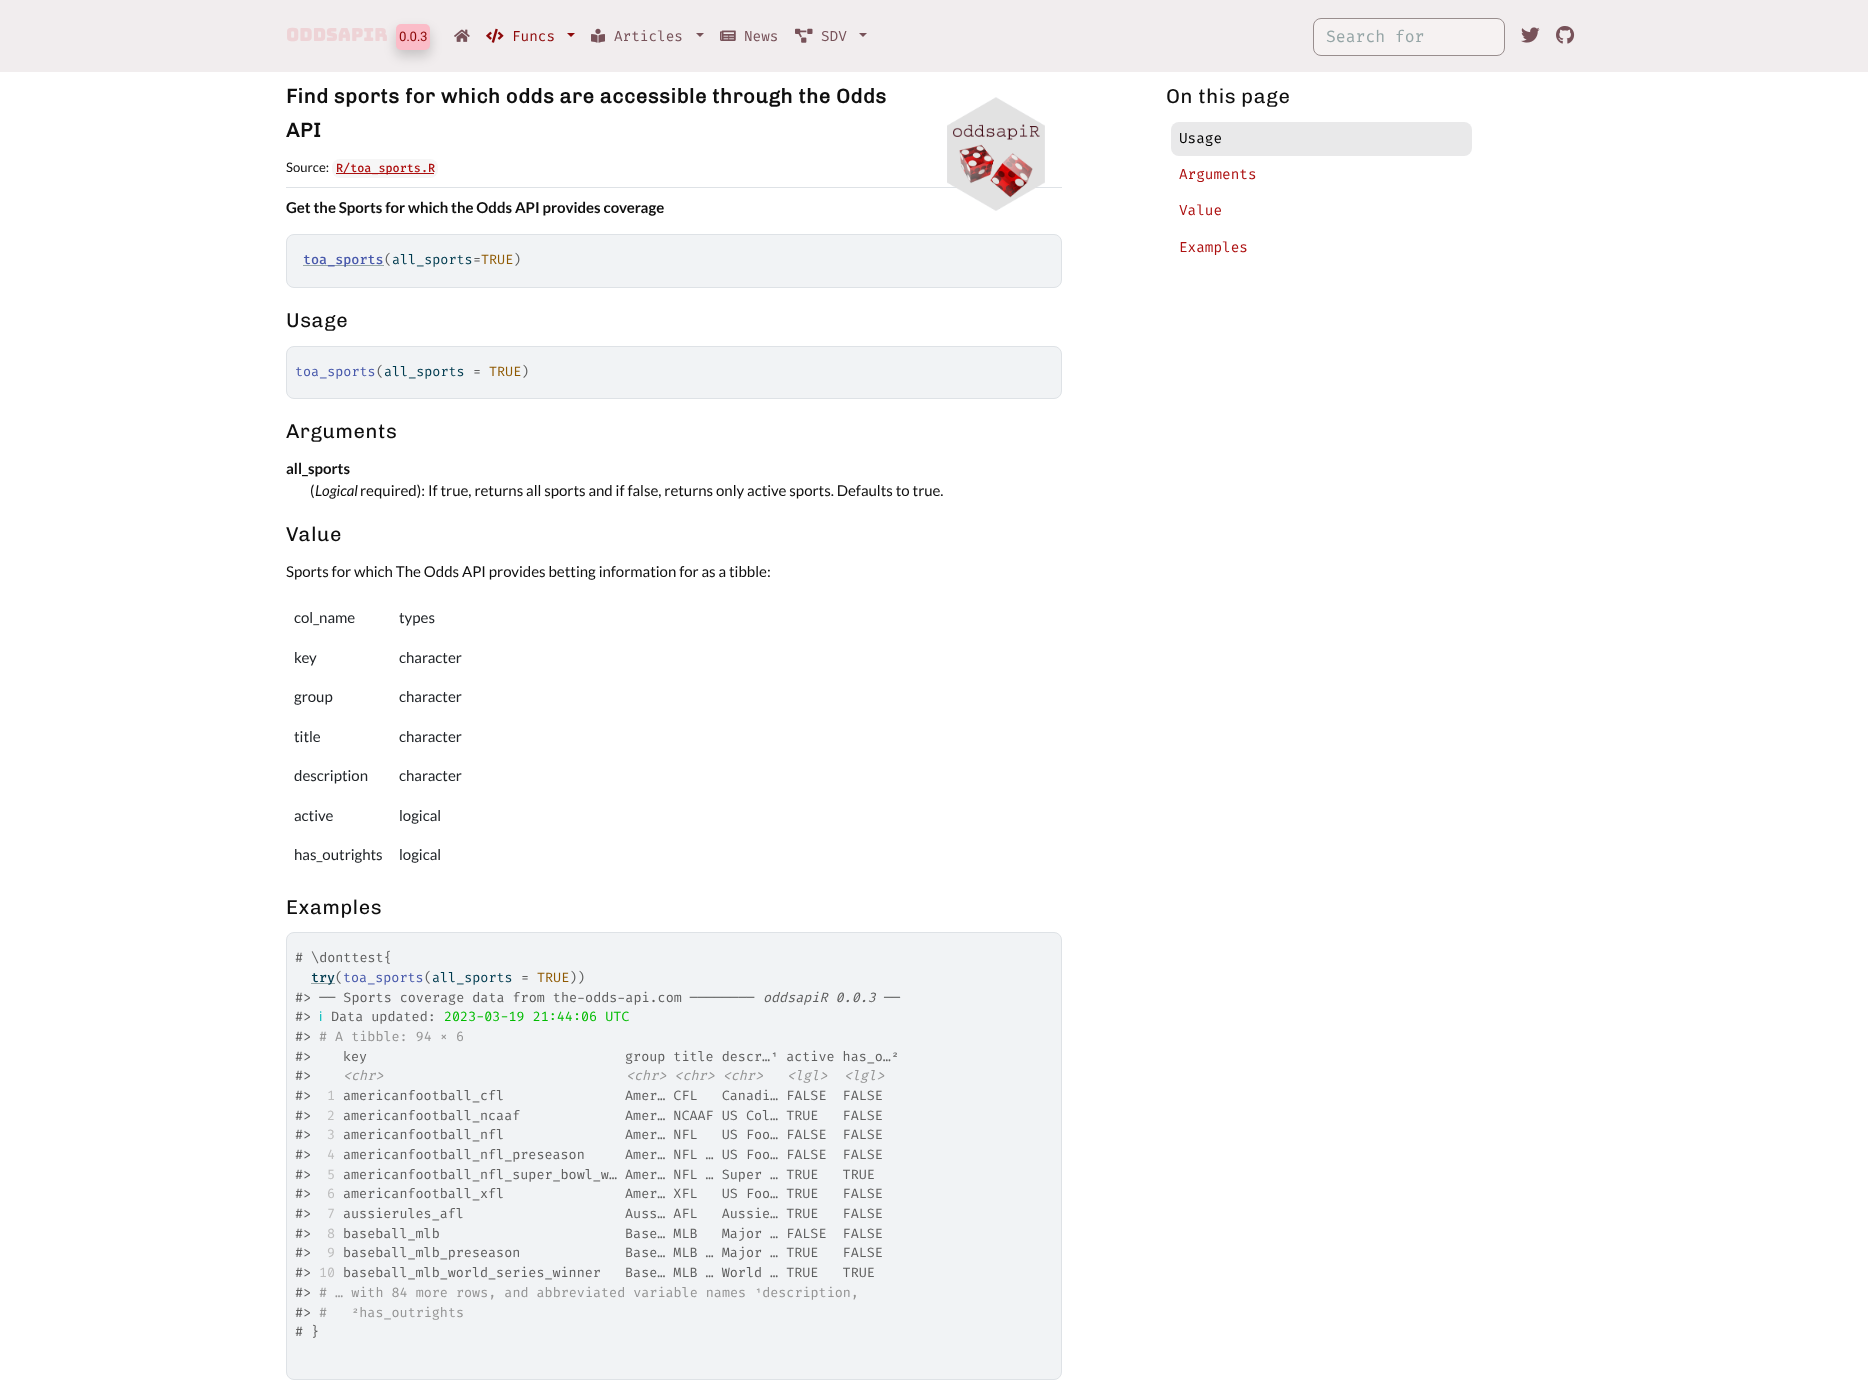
<!DOCTYPE html>
<meta charset="utf-8">
<style>body { margin: 0 } canvas { display: block }</style>
<canvas id="canvas" width="1868" height="1384"></canvas>
<script type="module">
  const canvas = document.getElementById("canvas");
  const g = canvas.getContext("2d");
  g.miterLimit = 4;
  g.fontKerning = "normal";
  function drawText(s, x, y, [font, color]) {
    g.font = font;
    g.fillStyle = color;
    g.fillText(s, x, y);
  }
  function fillBox(x, y, w, h, color) {
    g.fillStyle = color;
    g.fillRect(x, y, w, h);
  }
  function fillRounded(x, y, w, h, r, color) {
    g.fillStyle = color;
    g.beginPath();
    g.roundRect(x, y, w, h, r);
    g.fill();
  }
  async function drawPicture(src, x, y, w, h) {
    const img = new Image();
    img.src = src;
    await img.decode();
    g.drawImage(img, x, y, w, h);
  }

  const s1 = ["18px Bungee", "#EED3D6"];
  const s2 = ["13.1px Roboto Slab", "#8D090A"];
  const s3 = ["14px Fira Code", "#8D090A"];
  const s4 = ["14px Fira Code", "#775259"];
  const s5 = ["16px Fira Code", "#95A5A6"];
  const s6 = ["bold 20px Chivo", "#0F0F0F"];
  const s7 = ["13.1px Lato", "#0F0F0F"];
  const s8 = ["500 11.5px Fira Code", "#AD1010"];
  const s9 = ["bold 15px Lato", "#0F0F0F"];
  const s10 = ["500 13.1px Fira Code", "#4758AB"];
  const s11 = ["13.1px Fira Code", "#5E5E5E"];
  const s12 = ["13.1px Fira Code", "#003B4F"];
  const s13 = ["13.1px Fira Code", "#8F5902"];
  const s14 = ["500 20px Chivo", "#0F0F0F"];
  const s15 = ["13.1px Fira Code", "#4758AB"];
  const s16 = ["15px Lato", "#0F0F0F"];
  const s17 = ["italic 15px Lato", "#0F0F0F"];
  const s18 = ["15px Lato", "#212529"];
  const s19 = ["500 13.1px Fira Code", "#003B4F"];
  const s20 = ["italic 13.1px Fira Code", "#5E5E5E"];
  const s21 = ["13.1px Noto Sans", "#00BBBB"];
  const s22 = ["13.1px Fira Code", "#00BB00"];
  const s23 = ["13.1px Fira Code", "#949494"];
  const s24 = ["italic 13.1px Fira Code", "#949494"];
  const s25 = ["13.1px Fira Code", "#BCBCBC"];
  const s26 = ["14px Fira Code", "#000000"];
  const s27 = ["14px Fira Code", "#AD1010"];

  fillBox(0, 0, 1868, 1384, "#FFFFFF");
  fillBox(0, 0, 1868, 72, "#F1EDEE");
  drawText("oddsapiR", 286, 41, s1);
  g.fillStyle = "rgba(5, 5, 5, 0.18)";
  g.filter = "blur(6px)";
  g.beginPath();
  g.roundRect(396, 30, 34, 26, 5);
  g.fill();
  g.filter = "none";
  fillRounded(396, 24, 34, 26, 5, "#FBBCC8");
  drawText("0.0.3", 399, 41, s2);
  await drawPicture("pic1.png", 454, 29, 16, 13);
  await drawPicture("pic2.png", 486, 28, 18, 15);
  drawText("Funcs", 512, 41, s3);
  g.beginPath();
  g.moveTo(567, 33);
  g.lineTo(575, 33);
  g.lineTo(571, 37);
  g.closePath();
  g.fill();
  await drawPicture("pic3.png", 591, 28, 14, 15);
  drawText("Articles", 614, 41, s4);
  g.beginPath();
  g.moveTo(696, 33);
  g.lineTo(704, 33);
  g.lineTo(700, 37);
  g.closePath();
  g.fill();
  await drawPicture("pic4.png", 720, 30, 16, 11);
  drawText("News", 744, 41, s4);
  await drawPicture("pic5.png", 795, 28, 18, 15);
  drawText("SDV", 821, 41, s4);
  g.beginPath();
  g.moveTo(859, 33);
  g.lineTo(867, 33);
  g.lineTo(863, 37);
  g.closePath();
  g.fill();
  g.fillStyle = "#F6F2F2";
  g.beginPath();
  g.roundRect(1313.5, 18.5, 191, 37, 7.5);
  g.fill();
  g.strokeStyle = "#998E8E";
  g.stroke();
  drawText("Search for", 1326, 42, s5);
  await drawPicture("pic6.png", 1521, 27, 19, 16);
  await drawPicture("pic7.png", 1556, 26, 19, 18);
  fillBox(286, 187, 776, 1, "#DEE2E6");
  g.letterSpacing = "0.6px";
  drawText("Find sports for which odds are accessible through the Odds", 286, 103, s6);
  drawText("API", 286, 137, s6);
  await drawPicture("pic8.png", 947, 97, 98, 114);
  g.letterSpacing = "0px";
  drawText("Source:", 286, 172, s7);
  fillRounded(332, 159, 106, 19, 8, "#F6F6F6");
  fillBox(336, 173, 98, 1, "#AD1010");
  drawText("R/toa_sports.R", 336, 172, s8);
  drawText("Get the Sports for which the Odds API provides coverage", 286, 213, s9);
  g.fillStyle = "#F1F3F5";
  g.beginPath();
  g.roundRect(286.5, 234.5, 775, 53, 7.5);
  g.fill();
  g.strokeStyle = "#DEE2E6";
  g.stroke();
  fillBox(303, 265, 81, 1, "#95A5A6");
  drawText("toa_sports", 303, 264, s10);
  drawText("(", 384, 264, s11);
  drawText("all_sports", 392, 264, s12);
  drawText("=", 473, 264, s11);
  drawText("TRUE", 481, 264, s13);
  drawText(")", 513, 264, s11);
  g.letterSpacing = "0.6px";
  drawText("Usage", 286, 327, s14);
  g.fillStyle = "#F1F3F5";
  g.beginPath();
  g.roundRect(286.5, 346.5, 775, 52, 7.5);
  g.fill();
  g.stroke();
  g.letterSpacing = "0px";
  drawText("toa_sports", 295, 376, s15);
  drawText("(", 376, 376, s11);
  drawText("all_sports", 384, 376, s12);
  drawText("=", 473, 376, s11);
  drawText("TRUE", 489, 376, s13);
  drawText(")", 521, 376, s11);
  g.letterSpacing = "0.6px";
  drawText("Arguments", 286, 438, s14);
  g.letterSpacing = "0px";
  drawText("all_sports", 286, 474, s9);
  drawText("(", 310, 496, s16);
  drawText("Logical", 315, 496, s17);
  drawText("required): If true, returns all sports and if false, returns only active sports. Defaults to true.", 360, 496, s16);
  g.letterSpacing = "0.6px";
  drawText("Value", 286, 541, s14);
  g.letterSpacing = "0px";
  drawText("Sports for which The Odds API provides betting information for as a tibble:", 286, 577, s16);
  drawText("col_name", 294, 623, s18);
  drawText("types", 399, 623, s18);
  drawText("key", 294, 663, s18);
  drawText("character", 399, 663, s18);
  drawText("group", 294, 702, s18);
  drawText("character", 399, 702, s18);
  drawText("title", 294, 742, s18);
  drawText("character", 399, 742, s18);
  drawText("description", 294, 781, s18);
  drawText("character", 399, 781, s18);
  drawText("active", 294, 821, s18);
  drawText("logical", 399, 821, s18);
  drawText("has_outrights", 294, 860, s18);
  drawText("logical", 399, 860, s18);
  g.letterSpacing = "0.6px";
  drawText("Examples", 286, 914, s14);
  g.fillStyle = "#F1F3F5";
  g.beginPath();
  g.roundRect(286.5, 932.5, 775, 447, 7.5);
  g.fill();
  g.stroke();
  g.letterSpacing = "0px";
  drawText("# \\donttest{", 295, 962, s11);
  fillBox(311, 983, 24, 1, "#95A5A6");
  drawText("try", 311, 982, s19);
  drawText("(", 335, 982, s11);
  drawText("toa_sports", 343, 982, s15);
  drawText("(", 424, 982, s11);
  drawText("all_sports", 432, 982, s12);
  drawText("=", 521, 982, s11);
  drawText("TRUE", 537, 982, s13);
  drawText("))", 569, 982, s11);
  drawText("#> ── Sports coverage data from the-odds-api.com ────────", 295, 1002, s11);
  drawText("oddsapiR 0.0.3", 763, 1002, s20);
  drawText("──", 884, 1002, s11);
  drawText("#>", 295, 1021, s11);
  drawText("ℹ", 319, 1021, s21);
  drawText("Data updated:", 331, 1021, s11);
  drawText("2023-03-19 21:44:06 UTC", 444, 1021, s22);
  drawText("#>", 295, 1041, s11);
  drawText("# A tibble: 94 × 6", 319, 1041, s23);
  drawText("#>", 295, 1061, s11);
  drawText("key                                group title descr…¹ active has_o…²", 343, 1061, s11);
  drawText("#>", 295, 1080, s11);
  drawText("<chr>", 343, 1080, s24);
  drawText("<chr> <chr> <chr>", 626, 1080, s24);
  drawText("<lgl>", 787, 1080, s24);
  drawText("<lgl>", 844, 1080, s24);
  drawText("#>", 295, 1100, s11);
  drawText("1", 327, 1100, s25);
  drawText("americanfootball_cfl               Amer… CFL   Canadi… FALSE  FALSE", 343, 1100, s11);
  drawText("#>", 295, 1120, s11);
  drawText("2", 327, 1120, s25);
  drawText("americanfootball_ncaaf             Amer… NCAAF US Col… TRUE   FALSE", 343, 1120, s11);
  drawText("#>", 295, 1139, s11);
  drawText("3", 327, 1139, s25);
  drawText("americanfootball_nfl               Amer… NFL   US Foo… FALSE  FALSE", 343, 1139, s11);
  drawText("#>", 295, 1159, s11);
  drawText("4", 327, 1159, s25);
  drawText("americanfootball_nfl_preseason     Amer… NFL … US Foo… FALSE  FALSE", 343, 1159, s11);
  drawText("#>", 295, 1179, s11);
  drawText("5", 327, 1179, s25);
  drawText("americanfootball_nfl_super_bowl_w… Amer… NFL … Super … TRUE   TRUE", 343, 1179, s11);
  drawText("#>", 295, 1198, s11);
  drawText("6", 327, 1198, s25);
  drawText("americanfootball_xfl               Amer… XFL   US Foo… TRUE   FALSE", 343, 1198, s11);
  drawText("#>", 295, 1218, s11);
  drawText("7", 327, 1218, s25);
  drawText("aussierules_afl                    Auss… AFL   Aussie… TRUE   FALSE", 343, 1218, s11);
  drawText("#>", 295, 1238, s11);
  drawText("8", 327, 1238, s25);
  drawText("baseball_mlb                       Base… MLB   Major … FALSE  FALSE", 343, 1238, s11);
  drawText("#>", 295, 1257, s11);
  drawText("9", 327, 1257, s25);
  drawText("baseball_mlb_preseason             Base… MLB … Major … TRUE   FALSE", 343, 1257, s11);
  drawText("#>", 295, 1277, s11);
  drawText("10", 319, 1277, s25);
  drawText("baseball_mlb_world_series_winner   Base… MLB … World … TRUE   TRUE", 343, 1277, s11);
  drawText("#>", 295, 1297, s11);
  drawText("# … with 84 more rows, and abbreviated variable names ¹description,", 319, 1297, s23);
  drawText("#>", 295, 1317, s11);
  drawText("#   ²has_outrights", 319, 1317, s23);
  drawText("# }", 295, 1336, s11);
  g.letterSpacing = "0.6px";
  drawText("On this page", 1166, 103, s14);
  fillRounded(1171, 122, 301, 34, 8, "#E9E9EA");
  g.letterSpacing = "0px";
  drawText("Usage", 1179, 143, s26);
  drawText("Arguments", 1179, 179, s27);
  drawText("Value", 1179, 215, s27);
  drawText("Examples", 1179, 252, s27);
</script>
